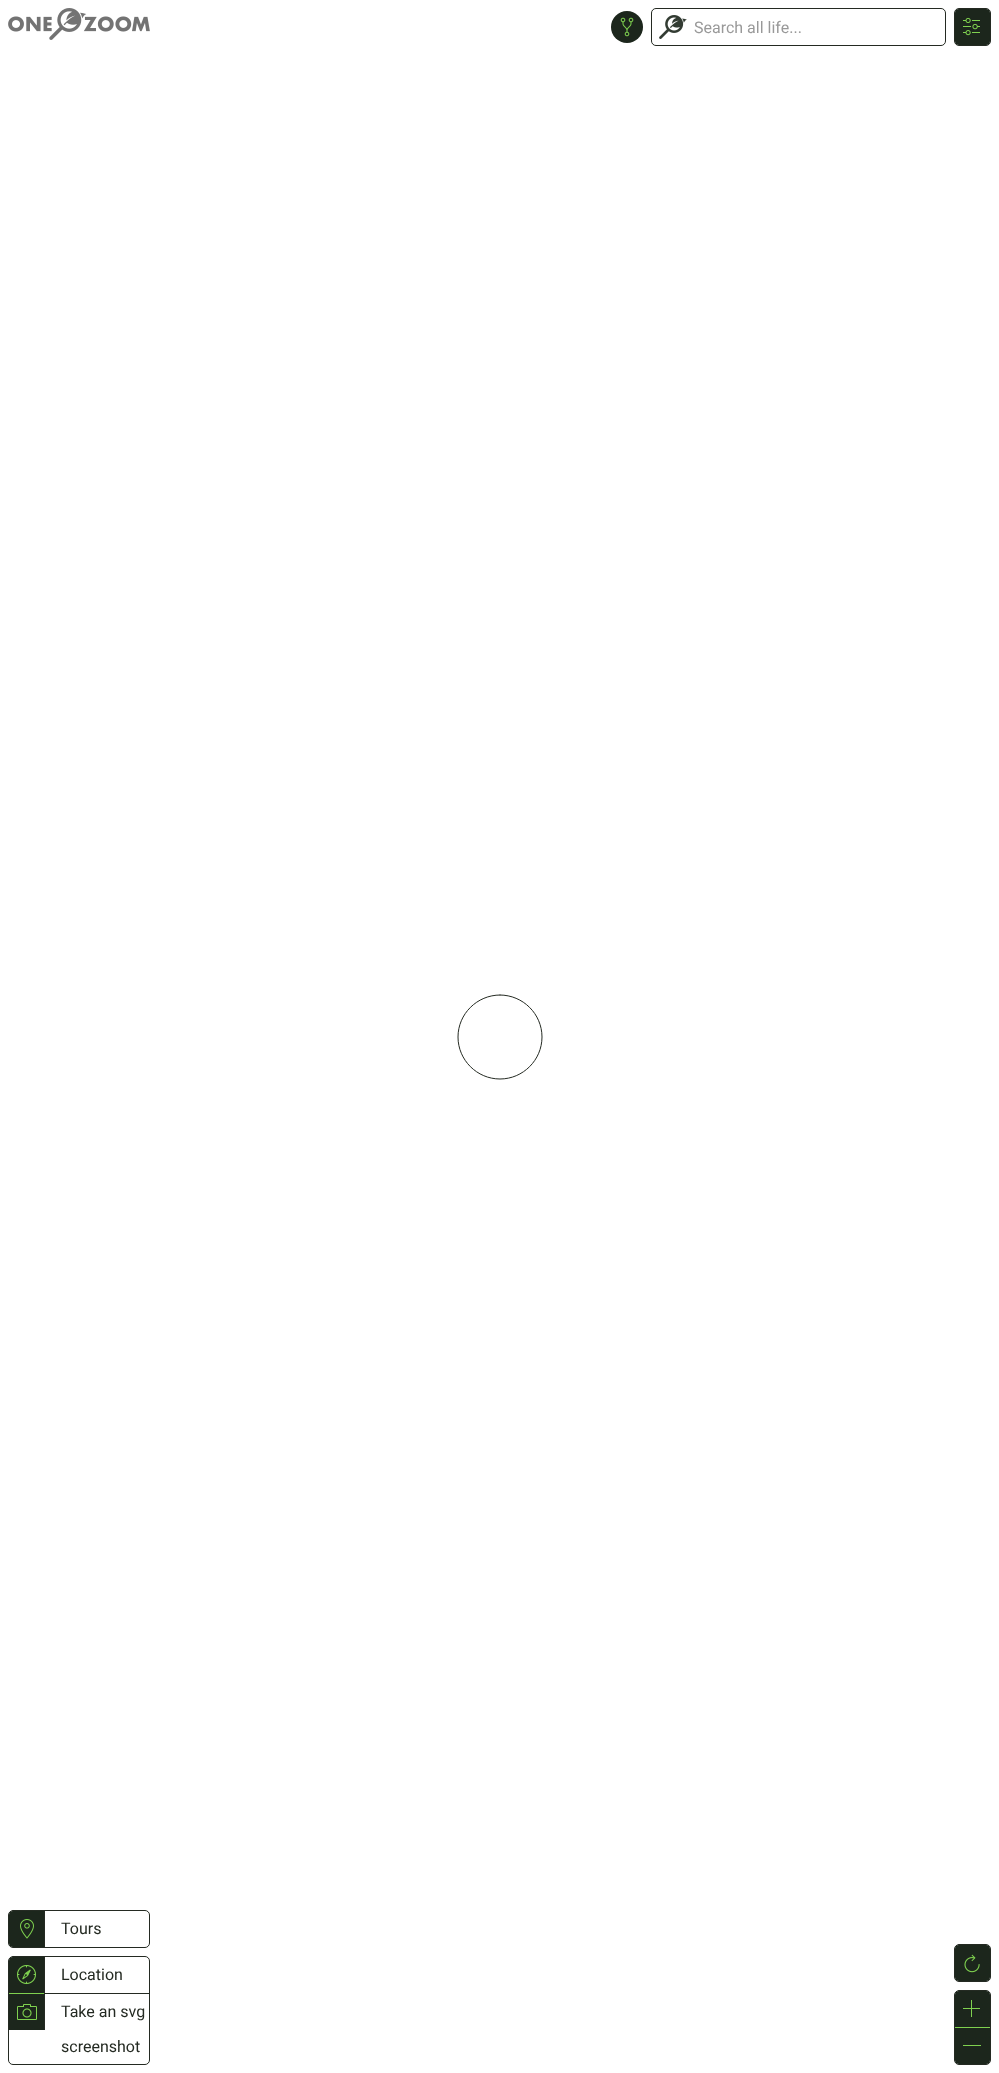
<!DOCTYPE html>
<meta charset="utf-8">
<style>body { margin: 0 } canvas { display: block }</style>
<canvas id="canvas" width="999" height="2073"></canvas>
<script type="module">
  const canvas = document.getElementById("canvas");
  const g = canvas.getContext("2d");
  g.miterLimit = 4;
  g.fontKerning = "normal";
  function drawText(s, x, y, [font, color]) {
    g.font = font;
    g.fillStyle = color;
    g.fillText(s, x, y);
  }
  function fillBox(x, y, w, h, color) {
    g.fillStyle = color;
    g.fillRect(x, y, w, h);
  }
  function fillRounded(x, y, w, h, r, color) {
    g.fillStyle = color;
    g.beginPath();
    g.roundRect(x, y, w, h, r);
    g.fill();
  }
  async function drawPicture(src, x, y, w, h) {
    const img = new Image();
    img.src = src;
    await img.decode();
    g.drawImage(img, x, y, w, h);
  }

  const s1 = ["16px Roboto", "#999999"];
  const s2 = ["16px Roboto", "#242A22"];

  fillBox(0, 0, 999, 2073, "#FFFFFF");
  await drawPicture("pic1.png", 8, 8, 142, 32);
  g.fillStyle = "#1C261C";
  g.beginPath();
  g.arc(627, 27, 16, 0, Math.PI * 2);
  g.fill();
  await drawPicture("pic2.png", 620, 17, 14, 20);
  g.beginPath();
  g.roundRect(651.5, 8.5, 294, 37, 4.5);
  g.strokeStyle = "#242A22";
  g.stroke();
  await drawPicture("pic3.png", 659, 15, 28, 24);
  drawText("Search all life...", 694, 33, s1);
  g.beginPath();
  g.roundRect(954.5, 8.5, 36, 37, 4.5);
  g.stroke();
  fillRounded(955, 9, 35, 36, 4, "#1C261C");
  await drawPicture("pic4.png", 963, 17, 17, 19);
  g.beginPath();
  g.moveTo(500, 995);
  g.bezierCurveTo(523, 995, 542, 1014, 542, 1037);
  g.bezierCurveTo(542, 1060, 523, 1079, 500, 1079);
  g.bezierCurveTo(477, 1079, 458, 1060, 458, 1037);
  g.bezierCurveTo(458, 1014, 477, 995, 500, 995);
  g.lineCap = "round";
  g.stroke();
  g.beginPath();
  g.roundRect(8.5, 1910.5, 141, 37, 4.5);
  g.stroke();
  g.beginPath();
  g.roundRect(9, 1911, 36, 36, [4, 0, 0, 4]);
  g.fill();
  fillBox(44, 1911, 1, 36, "#242A22");
  await drawPicture("pic5.png", 20, 1919, 14, 20);
  drawText("Tours", 61, 1934, s2);
  g.beginPath();
  g.roundRect(8.5, 1956.5, 141, 108, 4.5);
  g.stroke();
  g.fillStyle = "#1C261C";
  g.beginPath();
  g.roundRect(9, 1957, 36, 36, [4, 0, 0, 0]);
  g.fill();
  fillBox(44, 1957, 1, 36, "#242A22");
  await drawPicture("pic6.png", 17, 1965, 20, 20);
  drawText("Location", 61, 1980, s2);
  fillBox(9, 1994, 35, 36, "#1C261C");
  fillBox(9, 1993, 36, 1, "#7FD14F");
  fillBox(44, 1993, 1, 37, "#242A22");
  await drawPicture("pic7.png", 17, 2004, 20, 16);
  fillBox(45, 1993, 104, 1, "#242A22");
  drawText("Take an svg", 61, 2017, s2);
  drawText("screenshot", 61, 2052, s2);
  g.beginPath();
  g.roundRect(954.5, 1944.5, 36, 37, 4.5);
  g.stroke();
  fillRounded(955, 1945, 35, 36, 4, "#1C261C");
  await drawPicture("pic8.png", 964, 1954, 16, 19);
  g.beginPath();
  g.roundRect(954.5, 1990.5, 36, 74, 4.5);
  g.stroke();
  g.beginPath();
  g.roundRect(955, 1991, 35, 36, [4, 4, 0, 0]);
  g.fill();
  fillBox(971, 2000, 1, 17, "#7FD14F");
  fillBox(963, 2008, 17, 1, "#7FD14F");
  g.fillStyle = "#1C261C";
  g.beginPath();
  g.roundRect(955, 2027, 35, 37, [0, 0, 4, 4]);
  g.fill();
  fillBox(955, 2027, 35, 1, "#7FD14F");
  fillBox(963, 2045, 18, 1, "#7FD14F");
</script>
